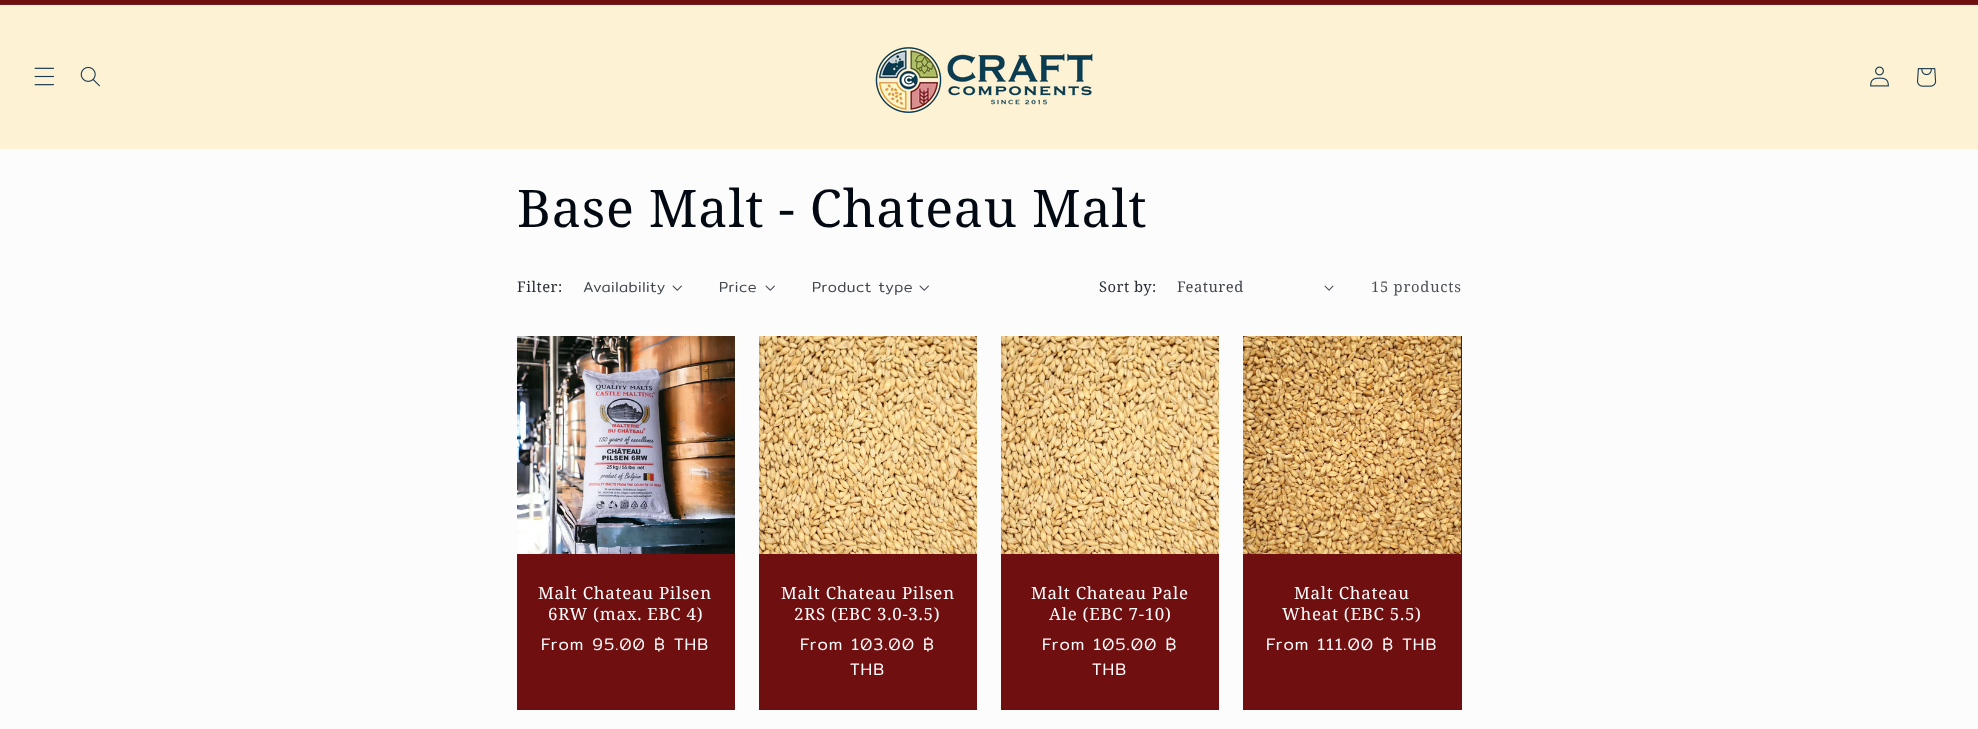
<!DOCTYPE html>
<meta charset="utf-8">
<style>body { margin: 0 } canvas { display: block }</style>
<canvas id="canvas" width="1978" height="729"></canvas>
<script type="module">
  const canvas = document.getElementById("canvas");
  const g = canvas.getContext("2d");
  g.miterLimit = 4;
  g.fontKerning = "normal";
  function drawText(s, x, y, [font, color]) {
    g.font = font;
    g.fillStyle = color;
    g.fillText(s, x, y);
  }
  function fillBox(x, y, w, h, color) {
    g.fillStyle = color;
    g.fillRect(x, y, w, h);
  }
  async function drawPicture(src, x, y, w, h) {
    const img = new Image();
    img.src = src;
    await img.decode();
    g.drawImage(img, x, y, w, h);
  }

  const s1 = ["52px Noto Serif", "#020912"];
  const s2 = ["14.75px Noto Serif", "#282D35"];
  const s3 = ["300 14.75px Mitr", "#41464D"];
  const s4 = ["14.75px Noto Serif", "#41464D"];
  const s5 = ["14.75px Noto Serif", "#4D5258"];
  const s6 = ["16.9px Noto Serif", "#FCFCFC"];
  const s7 = ["300 16.75px Mitr", "#FCFCFC"];

  fillBox(0, 0, 1978, 729, "#FCFCFC");
  fillBox(0, 0, 1978, 4, "#6F0F10");
  fillBox(0, 4, 1978, 1, "#7A2223");
  fillBox(0, 5, 1978, 144, "#FDF3D4");
  await drawPicture("pic1.png", 34, 67, 20, 19);
  await drawPicture("pic2.png", 80, 66, 20, 21);
  await drawPicture("pic3.png", 875, 47, 218, 66);
  await drawPicture("pic4.png", 1870, 66, 19, 21);
  await drawPicture("pic5.png", 1917, 68, 20, 19);
  g.letterSpacing = "0.75px";
  drawText("Base Malt - Chateau Malt", 517, 227, s1);
  g.letterSpacing = "0.5px";
  drawText("Filter:", 517, 292, s2);
  drawText("Availability", 583, 292, s3);
  await drawPicture("pic6.png", 672, 285, 10, 6);
  drawText("Price", 719, 292, s3);
  await drawPicture("pic6.png", 765, 285, 10, 6);
  drawText("Product type", 812, 292, s3);
  await drawPicture("pic6.png", 919, 285, 10, 6);
  drawText("Sort by:", 1099, 292, s2);
  drawText("Featured", 1177, 292, s4);
  await drawPicture("pic7.png", 1324, 285, 10, 6);
  g.letterSpacing = "0.75px";
  drawText("15 products", 1371, 292, s5);
  fillBox(517, 554, 218, 156, "#6F0F10");
  await drawPicture("pic8.png", 517, 336, 218, 218);
  drawText("Malt Chateau Pilsen", 538, 599, s6);
  drawText("6RW (max. EBC 4)", 548, 620, s6);
  g.letterSpacing = "1px";
  drawText("From 95.00 ฿ THB", 541, 650, s7);
  fillBox(759, 554, 218, 156, "#6F0F10");
  await drawPicture("pic9.png", 759, 336, 218, 218);
  g.letterSpacing = "0.75px";
  drawText("Malt Chateau Pilsen", 781, 599, s6);
  drawText("2RS (EBC 3.0-3.5)", 794, 620, s6);
  g.letterSpacing = "1px";
  drawText("From 103.00 ฿", 800, 650, s7);
  drawText("THB", 850, 675, s7);
  fillBox(1001, 554, 218, 156, "#6F0F10");
  await drawPicture("pic9.png", 1001, 336, 218, 218);
  g.letterSpacing = "0.75px";
  drawText("Malt Chateau Pale", 1031, 599, s6);
  drawText("Ale (EBC 7-10)", 1049, 620, s6);
  g.letterSpacing = "1px";
  drawText("From 105.00 ฿", 1042, 650, s7);
  drawText("THB", 1092, 675, s7);
  fillBox(1243, 336, 219, 374, "#6F0F10");
  await drawPicture("pic10.png", 1243, 336, 218, 218);
  g.letterSpacing = "0.75px";
  drawText("Malt Chateau", 1294, 599, s6);
  drawText("Wheat (EBC 5.5)", 1282, 620, s6);
  g.letterSpacing = "1px";
  drawText("From 111.00 ฿ THB", 1266, 650, s7);
</script>
